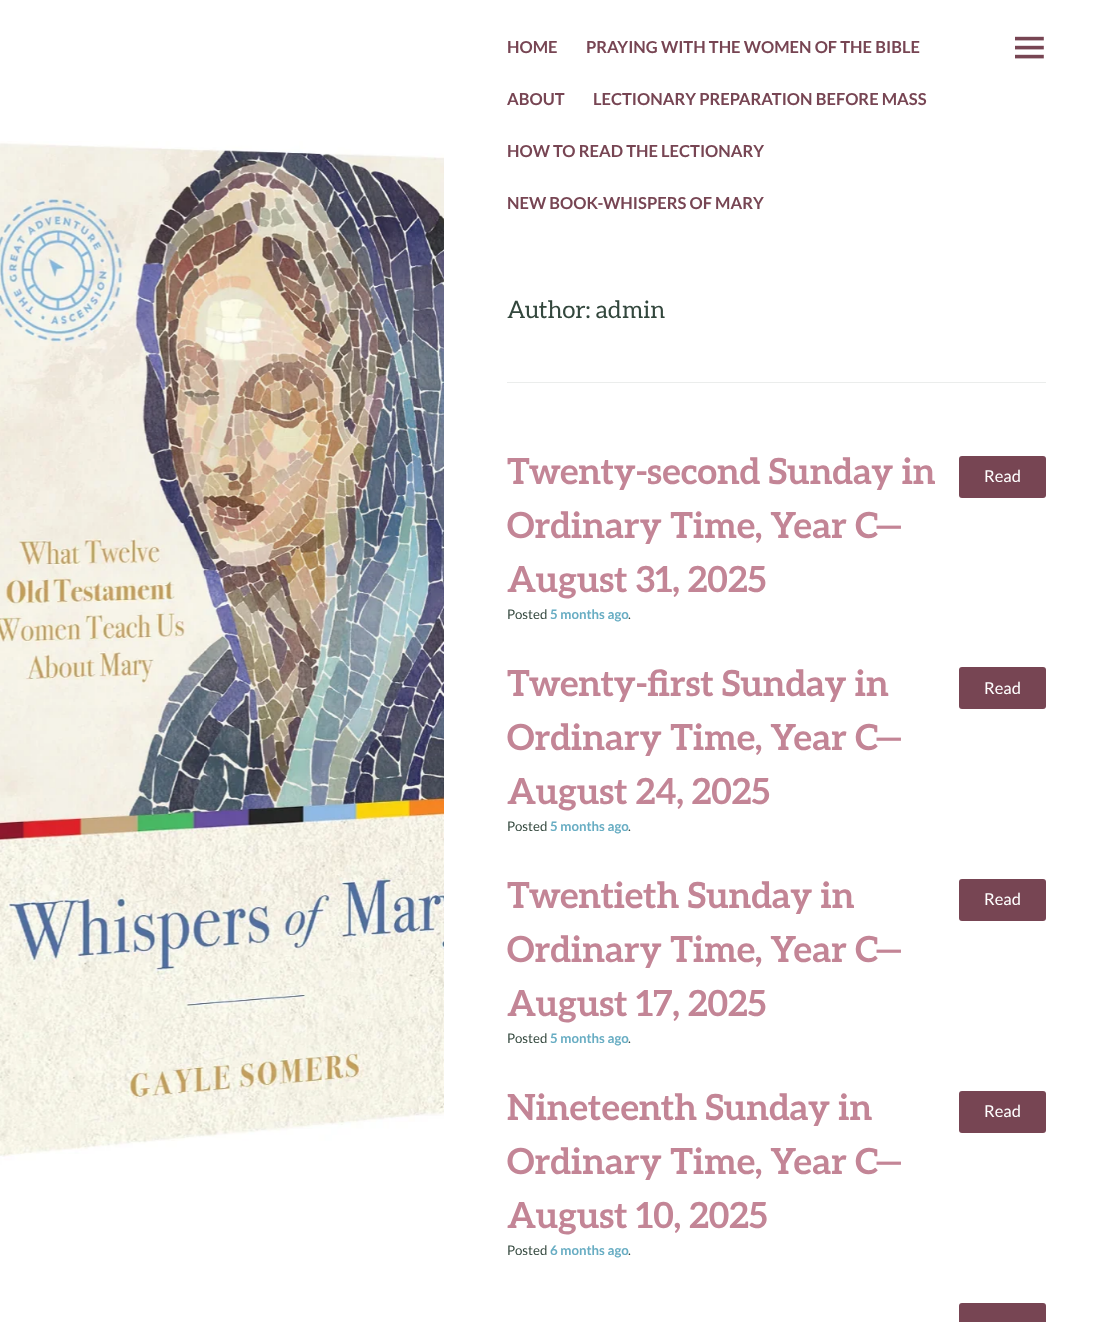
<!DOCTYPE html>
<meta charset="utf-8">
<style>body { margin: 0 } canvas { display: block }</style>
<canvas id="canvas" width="1109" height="1322"></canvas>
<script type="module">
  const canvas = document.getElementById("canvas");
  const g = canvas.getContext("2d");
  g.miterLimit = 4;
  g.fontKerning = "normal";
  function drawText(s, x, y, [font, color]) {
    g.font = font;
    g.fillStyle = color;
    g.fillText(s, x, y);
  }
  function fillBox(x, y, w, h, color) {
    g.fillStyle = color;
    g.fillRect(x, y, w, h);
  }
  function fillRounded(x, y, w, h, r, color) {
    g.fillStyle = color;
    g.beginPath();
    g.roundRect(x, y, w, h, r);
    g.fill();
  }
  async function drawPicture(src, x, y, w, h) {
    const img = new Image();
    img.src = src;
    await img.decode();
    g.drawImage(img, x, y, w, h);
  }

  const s1 = ["bold 16.5px Lato", "#774553"];
  const s2 = ["24px Aleo", "#33473D"];
  const s3 = ["bold 36px Aleo", "#C38596"];
  const s4 = ["16.5px Lato", "#FFFFFF"];
  const s5 = ["13.25px Lato", "#33473D"];
  const s6 = ["bold 13.25px Lato", "#68ADC3"];

  fillBox(0, 0, 1109, 1322, "#FFFFFF");
  await drawPicture("pic1.png", 0, 0, 444, 1322);
  drawText("HOME", 507, 53, s1);
  drawText("PRAYING WITH THE WOMEN OF THE BIBLE", 586, 53, s1);
  drawText("ABOUT", 507, 105, s1);
  drawText("LECTIONARY PREPARATION BEFORE MASS", 593, 105, s1);
  drawText("HOW TO READ THE LECTIONARY", 507, 157, s1);
  drawText("NEW BOOK-WHISPERS OF MARY", 507, 209, s1);
  await drawPicture("pic2.png", 1015, 36, 29, 23);
  drawText("Author: admin", 507, 318, s2);
  fillBox(507, 382, 539, 1, "#EBEDEC");
  drawText("Twenty-second Sunday in", 507, 484, s3);
  drawText("Ordinary Time, Year C—", 507, 538, s3);
  drawText("August 31, 2025", 507, 592, s3);
  fillRounded(959, 456, 87, 42, 3, "#774553");
  drawText("Read", 984, 482, s4);
  drawText("Posted", 507, 619, s5);
  drawText("5 months ago", 550, 619, s6);
  drawText(".", 628, 619, s5);
  drawText("Twenty-first Sunday in", 507, 696, s3);
  drawText("Ordinary Time, Year C—", 507, 750, s3);
  drawText("August 24, 2025", 507, 804, s3);
  fillRounded(959, 667, 87, 42, 3, "#774553");
  drawText("Read", 984, 694, s4);
  drawText("Posted", 507, 831, s5);
  drawText("5 months ago", 550, 831, s6);
  drawText(".", 628, 831, s5);
  drawText("Twentieth Sunday in", 507, 908, s3);
  drawText("Ordinary Time, Year C—", 507, 962, s3);
  drawText("August 17, 2025", 507, 1016, s3);
  fillRounded(959, 879, 87, 42, 3, "#774553");
  drawText("Read", 984, 905, s4);
  drawText("Posted", 507, 1043, s5);
  drawText("5 months ago", 550, 1043, s6);
  drawText(".", 628, 1043, s5);
  drawText("Nineteenth Sunday in", 507, 1120, s3);
  drawText("Ordinary Time, Year C—", 507, 1174, s3);
  drawText("August 10, 2025", 507, 1228, s3);
  fillRounded(959, 1091, 87, 42, 3, "#774553");
  drawText("Read", 984, 1117, s4);
  drawText("Posted", 507, 1255, s5);
  drawText("6 months ago", 550, 1255, s6);
  drawText(".", 628, 1255, s5);
  fillRounded(959, 1303, 87, 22, 3, "#774553");
</script>
